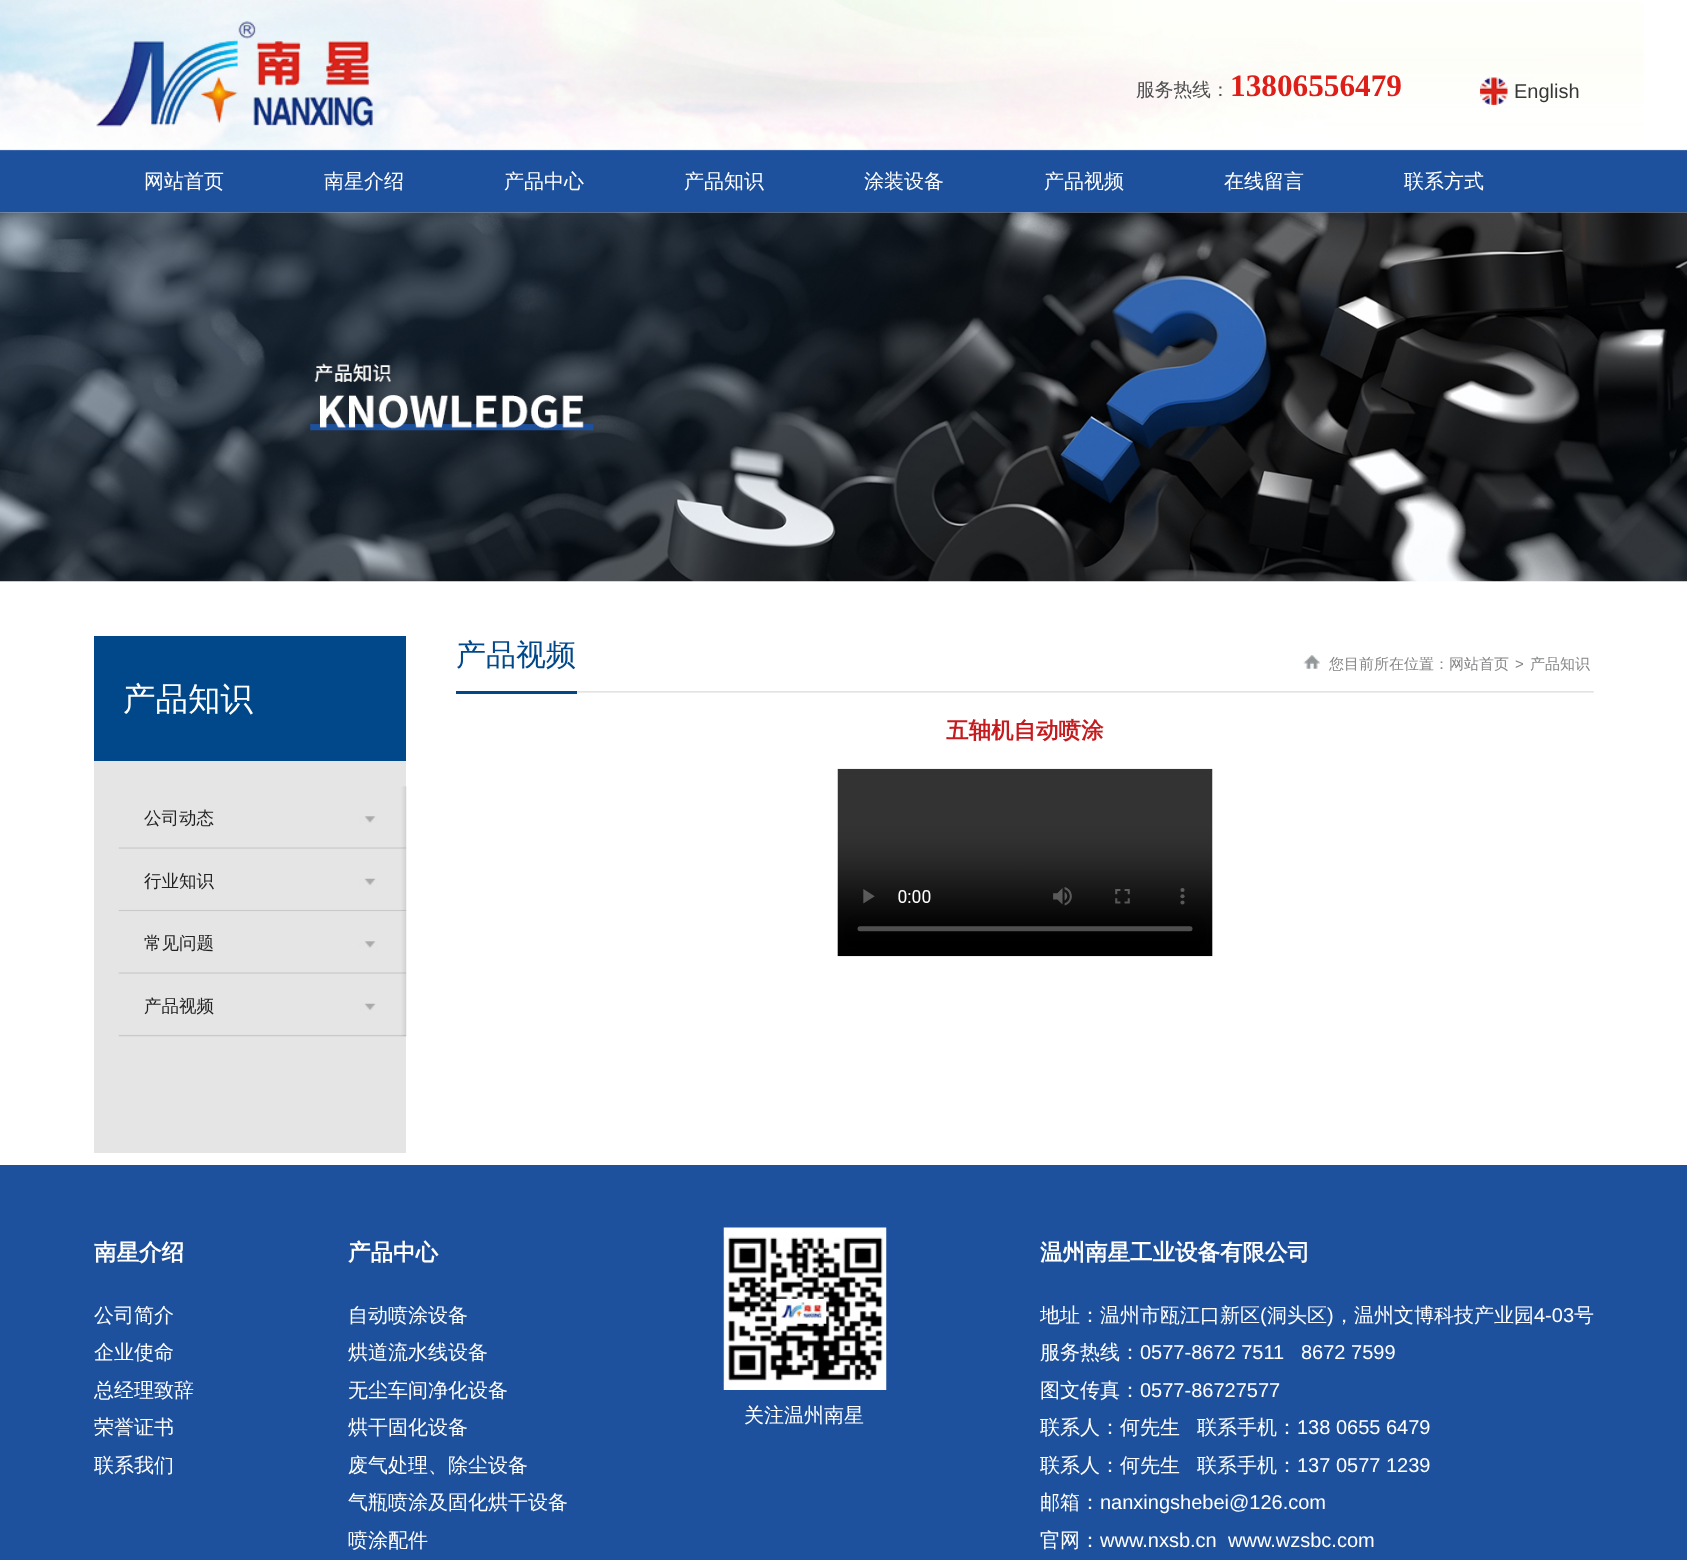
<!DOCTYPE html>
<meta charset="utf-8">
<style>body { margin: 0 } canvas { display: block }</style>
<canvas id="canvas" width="1687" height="1560"></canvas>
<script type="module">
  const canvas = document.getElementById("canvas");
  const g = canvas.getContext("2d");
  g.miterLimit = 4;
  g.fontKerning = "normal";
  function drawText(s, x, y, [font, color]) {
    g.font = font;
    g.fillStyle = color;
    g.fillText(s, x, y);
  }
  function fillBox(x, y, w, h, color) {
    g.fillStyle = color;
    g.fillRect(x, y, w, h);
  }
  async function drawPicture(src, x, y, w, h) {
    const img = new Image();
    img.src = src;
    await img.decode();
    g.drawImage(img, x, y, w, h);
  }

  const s1 = ["500 18.75px WenQuanYi Zen Hei", "#4E4E4E"];
  const s2 = ["bold 31.25px Liberation Serif", "#DE1E19"];
  const s3 = ["20px Liberation Sans", "#363737"];
  const s4 = ["500 20px WenQuanYi Zen Hei", "#FFFFFF"];
  const s5 = ["500 32.5px WenQuanYi Zen Hei", "#FFFFFF"];
  const s6 = ["500 17.5px WenQuanYi Zen Hei", "#222222"];
  const s7 = ["500 30px WenQuanYi Zen Hei", "#004889"];
  const s8 = ["500 15px WenQuanYi Zen Hei", "#858687"];
  const s9 = ["15px Liberation Sans", "#858687"];
  const s10 = ["bold 22.5px WenQuanYi Zen Hei", "#C51B1F"];
  const s11 = ["bold 22.5px WenQuanYi Zen Hei", "#FFFFFF"];
  const s12 = ["20px Liberation Sans", "#FFFFFF"];

  fillBox(0, 0, 1687, 1560, "#FFFFFF");
  await drawPicture("pic1.png", 0, 0, 1687, 213);
  await drawPicture("pic2.png", 96, 21, 277, 106);
  drawText("服务热线：", 1136, 96, s1);
  drawText("13806556479", 1230, 96, s2);
  await drawPicture("pic3.png", 1480, 77, 28, 28);
  drawText("English", 1514, 98, s3);
  drawText("网站首页", 144, 188, s4);
  drawText("南星介绍", 324, 188, s4);
  drawText("产品中心", 504, 188, s4);
  drawText("产品知识", 684, 188, s4);
  drawText("涂装设备", 864, 188, s4);
  drawText("产品视频", 1044, 188, s4);
  drawText("在线留言", 1224, 188, s4);
  drawText("联系方式", 1404, 188, s4);
  await drawPicture("pic4.png", 0, 212, 1687, 370);
  fillBox(94, 761, 312, 392, "#E5E5E5");
  fillBox(94, 636, 312, 125, "#004889");
  drawText("产品知识", 123, 710, s5);
  await drawPicture("pic5.png", 118, 786, 289, 63);
  drawText("公司动态", 144, 824, s6);
  await drawPicture("pic6.png", 118, 848, 289, 64);
  drawText("行业知识", 144, 887, s6);
  await drawPicture("pic7.png", 118, 911, 289, 63);
  drawText("常见问题", 144, 949, s6);
  await drawPicture("pic6.png", 118, 973, 289, 64);
  drawText("产品视频", 144, 1012, s6);
  await drawPicture("pic8.png", 577, 691, 1017, 2);
  fillBox(456, 691, 121, 3, "#01488A");
  drawText("产品视频", 456, 665, s7);
  await drawPicture("pic9.png", 1303, 655, 17, 14);
  drawText("您目前所在位置：网站首页", 1329, 669, s8);
  drawText(">", 1515, 669, s9);
  drawText("产品知识", 1530, 669, s8);
  drawText("五轴机自动喷涂", 946, 738, s10);
  await drawPicture("pic10.png", 837, 768, 376, 189);
  fillBox(0, 1165, 1687, 395, "#1D519D");
  drawText("南星介绍", 94, 1260, s11);
  drawText("公司简介", 94, 1322, s4);
  drawText("企业使命", 94, 1359, s4);
  drawText("总经理致辞", 94, 1397, s4);
  drawText("荣誉证书", 94, 1434, s4);
  drawText("联系我们", 94, 1472, s4);
  drawText("产品中心", 348, 1260, s11);
  drawText("自动喷涂设备", 348, 1322, s4);
  drawText("烘道流水线设备", 348, 1359, s4);
  drawText("无尘车间净化设备", 348, 1397, s4);
  drawText("烘干固化设备", 348, 1434, s4);
  drawText("废气处理、除尘设备", 348, 1472, s4);
  drawText("气瓶喷涂及固化烘干设备", 348, 1509, s4);
  drawText("喷涂配件", 348, 1547, s4);
  await drawPicture("pic11.png", 723, 1227, 164, 163);
  drawText("关注温州南星", 744, 1422, s4);
  drawText("温州南星工业设备有限公司", 1040, 1260, s11);
  drawText("地址：温州市瓯江口新区", 1040, 1322, s4);
  drawText("(", 1260, 1322, s12);
  drawText("洞头区", 1267, 1322, s4);
  drawText(")", 1327, 1322, s12);
  drawText("，温州文博科技产业园", 1334, 1322, s4);
  drawText("4-03", 1534, 1322, s12);
  drawText("号", 1574, 1322, s4);
  drawText("服务热线：", 1040, 1359, s4);
  drawText("0577-8672 7511", 1140, 1359, s12);
  drawText("8672 7599", 1301, 1359, s12);
  drawText("图文传真：", 1040, 1397, s4);
  drawText("0577-86727577", 1140, 1397, s12);
  drawText("联系人：何先生", 1040, 1434, s4);
  drawText("联系手机：", 1197, 1434, s4);
  drawText("138 0655 6479", 1297, 1434, s12);
  drawText("联系人：何先生", 1040, 1472, s4);
  drawText("联系手机：", 1197, 1472, s4);
  drawText("137 0577 1239", 1297, 1472, s12);
  drawText("邮箱：", 1040, 1509, s4);
  drawText("nanxingshebei@126.com", 1100, 1509, s12);
  drawText("官网：", 1040, 1547, s4);
  drawText("www.nxsb.cn", 1100, 1547, s12);
  drawText("www.wzsbc.com", 1228, 1547, s12);
</script>
